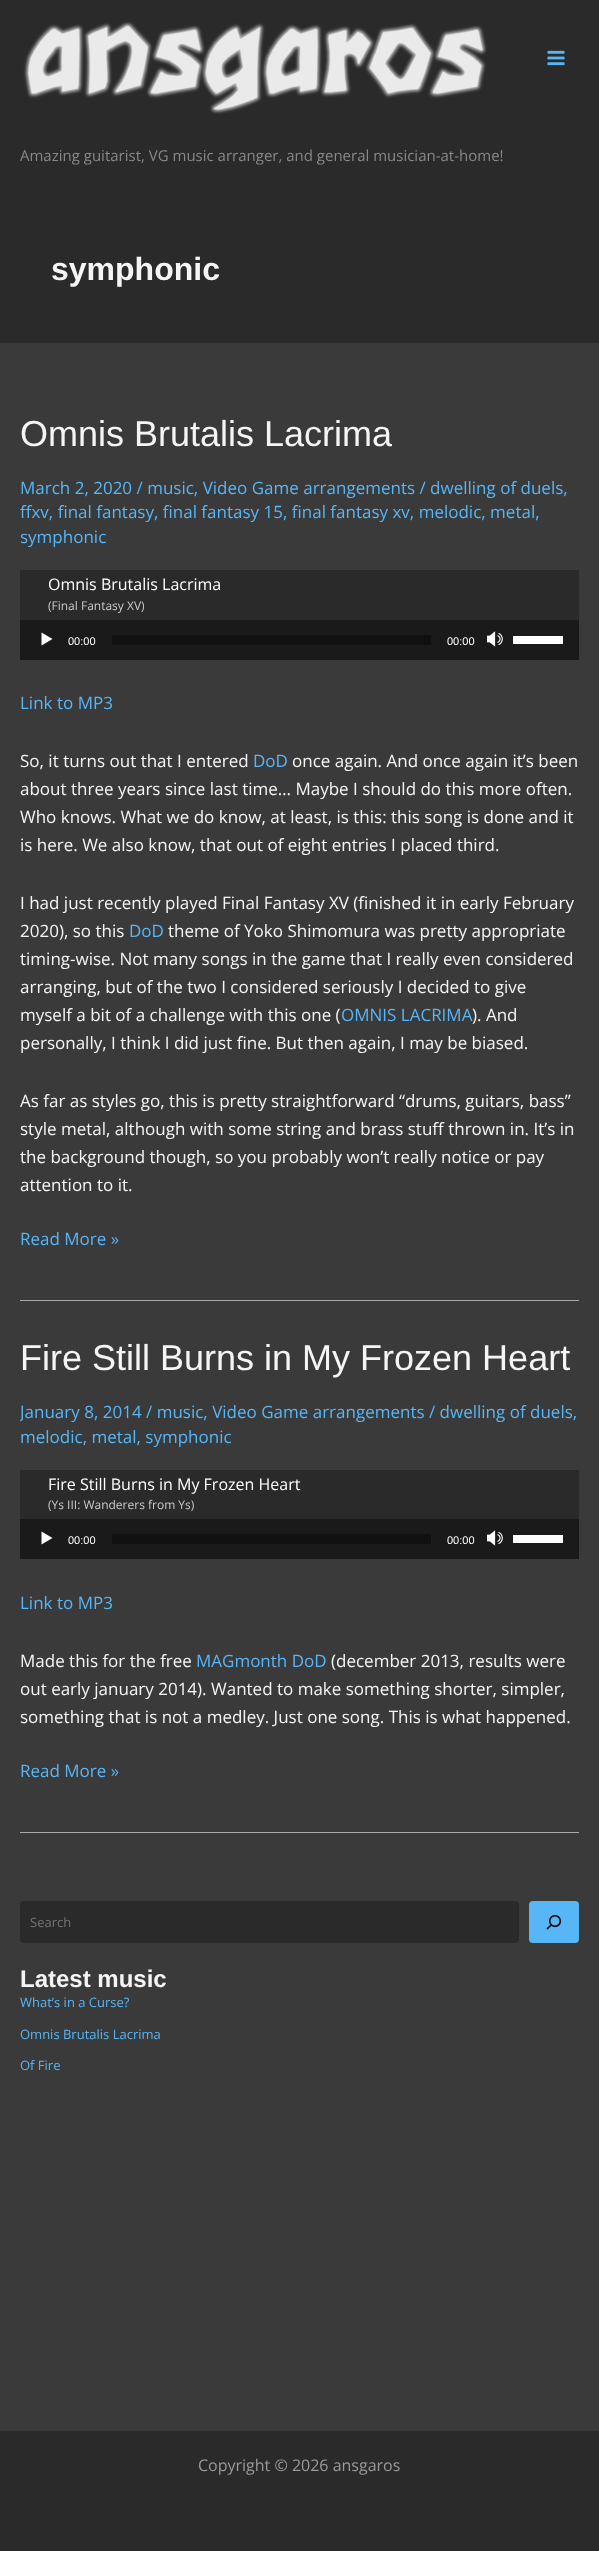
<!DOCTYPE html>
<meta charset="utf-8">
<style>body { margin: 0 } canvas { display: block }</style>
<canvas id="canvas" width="599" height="2551"></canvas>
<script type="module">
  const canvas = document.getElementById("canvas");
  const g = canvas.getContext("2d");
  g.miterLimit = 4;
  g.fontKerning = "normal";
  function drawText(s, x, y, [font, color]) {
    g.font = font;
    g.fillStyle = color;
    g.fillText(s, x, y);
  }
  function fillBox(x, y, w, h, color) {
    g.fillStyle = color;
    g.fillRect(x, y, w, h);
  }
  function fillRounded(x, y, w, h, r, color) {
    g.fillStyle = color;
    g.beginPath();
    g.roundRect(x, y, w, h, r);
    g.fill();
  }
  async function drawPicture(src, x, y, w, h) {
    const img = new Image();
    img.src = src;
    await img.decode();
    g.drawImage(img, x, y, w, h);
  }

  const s1 = ["15px Open Sans", "#888888"];
  const s2 = ["bold 32px Liberation Sans", "#F5F5F5"];
  const s3 = ["36px Liberation Sans", "#F5F5F5"];
  const s4 = ["17px Open Sans", "#57B6F6"];
  const s5 = ["16px Open Sans", "#FFFFFF"];
  const s6 = ["12px Open Sans", "#CACACA"];
  const s7 = ["11px Liberation Sans", "#FFFFFF"];
  const s8 = ["17px Open Sans", "#F5F5F5"];
  const s9 = ["13px Open Sans", "#757575"];
  const s10 = ["bold 24px Liberation Sans", "#F5F5F5"];
  const s11 = ["13px Open Sans", "#57B6F6"];
  const s12 = ["16px Open Sans", "#999999"];

  fillBox(0, 0, 599, 2551, "#3A3A3A");
  fillBox(0, 0, 599, 196, "#2A2A2A");
  await drawPicture("pic1.png", 23, 21, 464, 93);
  await drawPicture("pic2.png", 547, 50, 18, 16);
  drawText("Amazing guitarist, VG music arranger, and general musician-at-home!", 20, 161, s1);
  fillBox(0, 196, 599, 147, "#2A2A2A");
  drawText("symphonic", 51, 280, s2);
  fillBox(20, 1300, 559, 1, "#AAAAAA");
  drawText("Omnis Brutalis Lacrima", 20, 446, s3);
  drawText("March 2, 2020 / music, Video Game arrangements / dwelling of duels,", 20, 494, s4);
  drawText("ffxv, final fantasy, final fantasy 15, final fantasy xv, melodic, metal,", 20, 518, s4);
  drawText("symphonic", 20, 543, s4);
  fillBox(20, 570, 559, 50, "#2A2A2A");
  drawText("Omnis Brutalis Lacrima", 48, 590, s5);
  drawText("(Final Fantasy XV)", 48, 610, s6);
  fillBox(20, 620, 559, 40, "#1A1A1A");
  g.fillStyle = "#FFFFFF";
  g.beginPath();
  g.moveTo(41.5, 632.5);
  g.lineTo(52.5, 639);
  g.lineTo(41.5, 645.5);
  g.closePath();
  g.fill();
  drawText("00:00", 68, 645, s7);
  await drawPicture("pic3.png", 112, 635, 319, 10);
  drawText("00:00", 447, 645, s7);
  await drawPicture("pic4.png", 487, 631, 16, 16);
  fillBox(513, 636, 50, 8, "#FFFFFF");
  drawText("Link to MP3", 20, 709, s4);
  drawText("So, it turns out that I entered", 20, 767, s8);
  drawText("DoD", 253, 767, s4);
  drawText("once again. And once again it’s been", 292, 767, s8);
  drawText("about three years since last time… Maybe I should do this more often.", 20, 795, s8);
  drawText("Who knows. What we do know, at least, is this: this song is done and it", 20, 823, s8);
  drawText("is here. We also know, that out of eight entries I placed third.", 20, 851, s8);
  drawText("I had just recently played Final Fantasy XV (finished it in early February", 20, 909, s8);
  drawText("2020), so this", 20, 937, s8);
  drawText("DoD", 129, 937, s4);
  drawText("theme of Yoko Shimomura was pretty appropriate", 168, 937, s8);
  drawText("timing-wise. Not many songs in the game that I really even considered", 20, 965, s8);
  drawText("arranging, but of the two I considered seriously I decided to give", 20, 993, s8);
  drawText("myself a bit of a challenge with this one (", 20, 1021, s8);
  drawText("OMNIS LACRIMA", 341, 1021, s4);
  drawText("). And", 472, 1021, s8);
  drawText("personally, I think I did just fine. But then again, I may be biased.", 20, 1049, s8);
  drawText("As far as styles go, this is pretty straightforward “drums, guitars, bass”", 20, 1107, s8);
  drawText("style metal, although with some string and brass stuff thrown in. It’s in", 20, 1135, s8);
  drawText("the background though, so you probably won’t really notice or pay", 20, 1163, s8);
  drawText("attention to it.", 20, 1191, s8);
  drawText("Read More »", 20, 1245, s4);
  fillBox(20, 1832, 559, 1, "#AAAAAA");
  drawText("Fire Still Burns in My Frozen Heart", 20, 1370, s3);
  g.save();
  g.beginPath();
  g.rect(20, 1335, 559, 497);
  g.clip();
  drawText("January 8, 2014", 20, 1418, s4);
  g.restore();
  drawText("/ music, Video Game arrangements / dwelling of duels,", 146, 1418, s4);
  drawText("melodic, metal, symphonic", 20, 1443, s4);
  fillBox(20, 1470, 559, 49, "#2A2A2A");
  drawText("Fire Still Burns in My Frozen Heart", 48, 1490, s5);
  drawText("(Ys III: Wanderers from Ys)", 48, 1509, s6);
  fillBox(20, 1519, 559, 40, "#1A1A1A");
  g.fillStyle = "#FFFFFF";
  g.beginPath();
  g.moveTo(41.5, 1531.5);
  g.lineTo(52.5, 1538);
  g.lineTo(41.5, 1544.5);
  g.closePath();
  g.fill();
  drawText("00:00", 68, 1544, s7);
  await drawPicture("pic3.png", 112, 1534, 319, 10);
  drawText("00:00", 447, 1544, s7);
  await drawPicture("pic4.png", 487, 1530, 16, 16);
  fillBox(513, 1535, 50, 8, "#FFFFFF");
  drawText("Link to MP3", 20, 1609, s4);
  drawText("Made this for the free", 20, 1667, s8);
  drawText("MAGmonth DoD", 196, 1667, s4);
  drawText("(december 2013, results were", 331, 1667, s8);
  drawText("out early january 2014). Wanted to make something shorter, simpler,", 20, 1695, s8);
  drawText("something that is not a medley. Just one song. This is what happened.", 20, 1723, s8);
  drawText("Read More »", 20, 1777, s4);
  fillRounded(20, 1901, 499, 42, 4, "#2A2A2A");
  drawText("Search", 30, 1927, s9);
  fillRounded(529, 1901, 50, 42, 4, "#57B6F6");
  await drawPicture("pic5.png", 546, 1915, 16, 15);
  drawText("Latest music", 20, 1987, s10);
  drawText("What’s in a Curse?", 20, 2007, s11);
  drawText("Omnis Brutalis Lacrima", 20, 2039, s11);
  drawText("Of Fire", 20, 2070, s11);
  fillBox(0, 2431, 599, 120, "#2A2A2A");
  drawText("Copyright © 2026 ansgaros", 198, 2471, s12);
</script>
